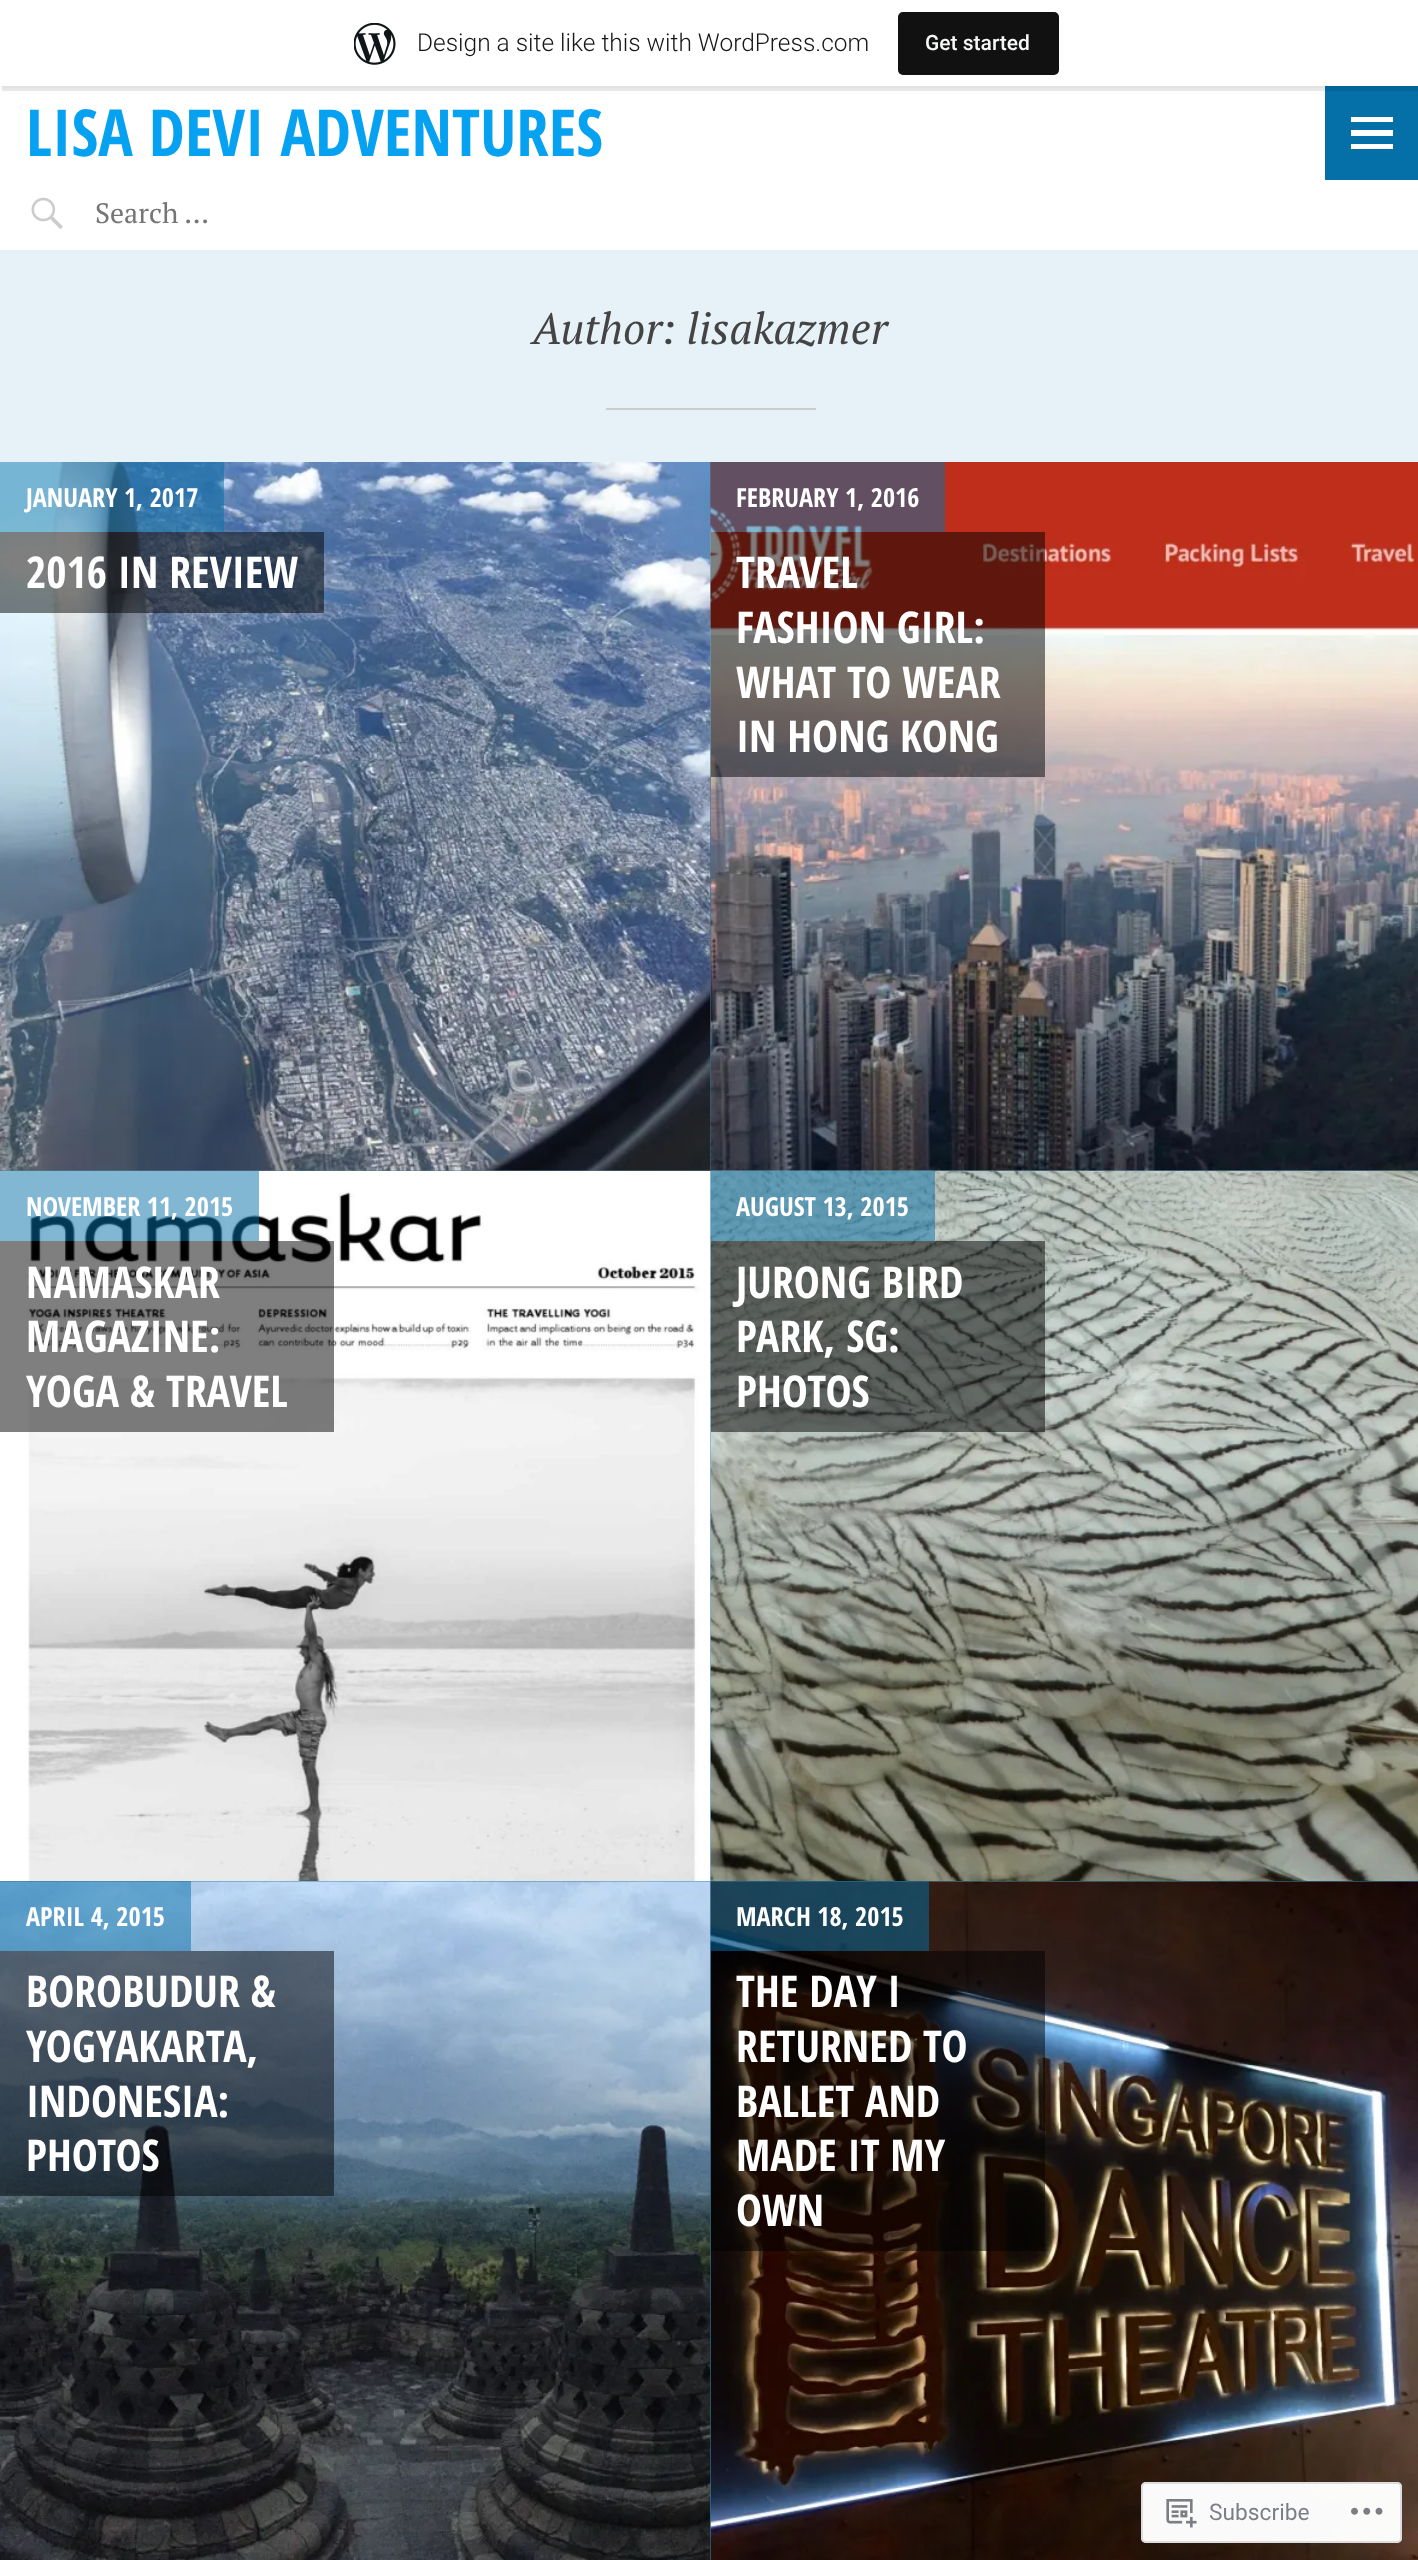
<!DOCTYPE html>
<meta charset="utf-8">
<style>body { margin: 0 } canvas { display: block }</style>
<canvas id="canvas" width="1418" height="2560"></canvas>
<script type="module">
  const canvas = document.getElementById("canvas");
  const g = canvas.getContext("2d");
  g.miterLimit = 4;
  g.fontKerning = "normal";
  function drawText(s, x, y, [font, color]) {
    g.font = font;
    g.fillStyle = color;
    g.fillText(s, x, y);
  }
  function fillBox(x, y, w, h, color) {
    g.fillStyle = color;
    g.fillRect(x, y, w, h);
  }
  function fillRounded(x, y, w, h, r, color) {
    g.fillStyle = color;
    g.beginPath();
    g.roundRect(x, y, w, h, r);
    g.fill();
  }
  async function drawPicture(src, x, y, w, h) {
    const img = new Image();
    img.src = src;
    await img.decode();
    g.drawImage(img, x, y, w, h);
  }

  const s1 = ["300 24.5px Roboto", "#171717"];
  const s2 = ["500 21px Roboto", "#F6F7F7"];
  const s3 = ["bold 64.75px Open Sans Condensed", "#07A1F2"];
  const s4 = ["28px PT Serif", "#757575"];
  const s5 = ["italic 43.75px PT Serif", "#444444"];
  const s6 = ["bold 26.25px Open Sans Condensed", "#FFFFFF"];
  const s7 = ["bold 43.75px Open Sans Condensed", "#FFFFFF"];
  const s8 = ["22.75px Roboto", "#7B7F84"];

  fillBox(0, 0, 1418, 2560, "#E7F2F8");
  fillBox(0, 86, 1418, 164, "#FFFFFF");
  fillBox(1325, 86, 93, 94, "#0570A8");
  g.fillStyle = "rgba(0, 0, 0, 0.05)";
  g.filter = "blur(2px)";
  g.beginPath();
  g.rect(0, 2, 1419, 86);
  g.fill();
  g.filter = "none";
  g.fillStyle = "rgba(0, 0, 0, 0.08)";
  g.beginPath();
  g.moveTo(2, 86);
  g.lineTo(2, 91);
  g.lineTo(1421, 91);
  g.lineTo(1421, 5);
  g.lineTo(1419, 5);
  g.lineTo(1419, 86);
  g.closePath();
  g.fill();
  fillBox(0, 0, 1418, 86, "#FFFFFF");
  await drawPicture("pic1.png", 354, 23, 42, 42);
  drawText("Design a site like this with WordPress.com", 417, 51, s1);
  fillRounded(898, 12, 161, 63, 5, "#111111");
  drawText("Get started", 925, 50, s2);
  drawText("LISA DEVI ADVENTURES", 26, 156, s3);
  g.fillStyle = "#FFFFFF";
  g.beginPath();
  g.moveTo(1351, 149);
  g.lineTo(1351, 144);
  g.lineTo(1393, 144);
  g.lineTo(1393, 149);
  g.closePath();
  g.moveTo(1351, 117);
  g.lineTo(1393, 117);
  g.lineTo(1393, 122);
  g.lineTo(1351, 122);
  g.closePath();
  g.moveTo(1351, 136);
  g.lineTo(1351, 130);
  g.lineTo(1393, 130);
  g.lineTo(1393, 136);
  g.closePath();
  g.fill();
  await drawPicture("pic2.png", 31, 197, 32, 32);
  drawText("Search …", 95, 223, s4);
  drawText("Author: lisakazmer", 532, 344, s5);
  fillBox(606, 408, 210, 2, "#CCCCCC");
  fillBox(0, 462, 711, 709, "#37718F");
  await drawPicture("pic3.png", 0, 462, 711, 709);
  fillBox(0, 462, 224, 70, "rgba(5, 112, 168, 0.5)");
  drawText("JANUARY 1, 2017", 26, 507, s6);
  fillBox(0, 532, 324, 81, "rgba(0, 0, 0, 0.5)");
  drawText("2016 IN REVIEW", 26, 588, s7);
  fillBox(711, 1170, 707, 1, "#5DA8CF");
  await drawPicture("pic4.png", 710, 462, 708, 709);
  fillBox(711, 462, 234, 70, "rgba(5, 112, 168, 0.5)");
  drawText("FEBRUARY 1, 2016", 736, 507, s6);
  fillBox(711, 532, 334, 245, "rgba(0, 0, 0, 0.5)");
  drawText("TRAVEL", 736, 588, s7);
  drawText("FASHION GIRL:", 736, 643, s7);
  drawText("WHAT TO WEAR", 736, 698, s7);
  drawText("IN HONG KONG", 736, 752, s7);
  fillBox(710, 1171, 1, 710, "#499DC9");
  await drawPicture("pic5.png", 0, 1170, 711, 711);
  fillBox(0, 1171, 259, 70, "rgba(5, 112, 168, 0.5)");
  drawText("NOVEMBER 11, 2015", 26, 1216, s6);
  fillBox(0, 1241, 334, 191, "rgba(0, 0, 0, 0.5)");
  drawText("NAMASKAR", 26, 1298, s7);
  drawText("MAGAZINE:", 26, 1352, s7);
  drawText("YOGA & TRAVEL", 26, 1407, s7);
  await drawPicture("pic6.png", 710, 1170, 708, 711);
  fillBox(711, 1171, 224, 70, "rgba(5, 112, 168, 0.5)");
  drawText("AUGUST 13, 2015", 736, 1216, s6);
  fillBox(711, 1241, 334, 191, "rgba(0, 0, 0, 0.5)");
  drawText("JURONG BIRD", 736, 1298, s7);
  drawText("PARK, SG:", 736, 1352, s7);
  drawText("PHOTOS", 736, 1407, s7);
  fillBox(0, 1881, 711, 679, "#3383AD");
  await drawPicture("pic7.png", 0, 1881, 711, 679);
  fillBox(0, 1881, 191, 70, "rgba(5, 112, 168, 0.5)");
  drawText("APRIL 4, 2015", 26, 1926, s6);
  fillBox(0, 1951, 334, 245, "rgba(0, 0, 0, 0.5)");
  drawText("BOROBUDUR &", 26, 2007, s7);
  drawText("YOGYAKARTA,", 26, 2062, s7);
  drawText("INDONESIA:", 26, 2117, s7);
  drawText("PHOTOS", 26, 2171, s7);
  fillBox(711, 1881, 707, 1, "#499DC9");
  await drawPicture("pic8.png", 710, 1881, 708, 679);
  fillBox(711, 1881, 218, 70, "rgba(5, 112, 168, 0.5)");
  drawText("MARCH 18, 2015", 736, 1926, s6);
  fillBox(711, 1951, 334, 300, "rgba(0, 0, 0, 0.5)");
  drawText("THE DAY I", 736, 2007, s7);
  drawText("RETURNED TO", 736, 2062, s7);
  drawText("BALLET AND", 736, 2117, s7);
  drawText("MADE IT MY", 736, 2171, s7);
  drawText("OWN", 736, 2226, s7);
  fillRounded(1141, 2482, 261, 61, 5, "rgba(255, 255, 255, 0.98)");
  g.beginPath();
  g.roundRect(1142, 2483, 259, 59, 4);
  g.strokeStyle = "rgba(220, 220, 222, 0.98)";
  g.lineWidth = 2;
  g.stroke();
  await drawPicture("pic9.png", 1166, 2499, 31, 29);
  drawText("Subscribe", 1209, 2520, s8);
  await drawPicture("pic10.png", 1351, 2507, 32, 8);
</script>
